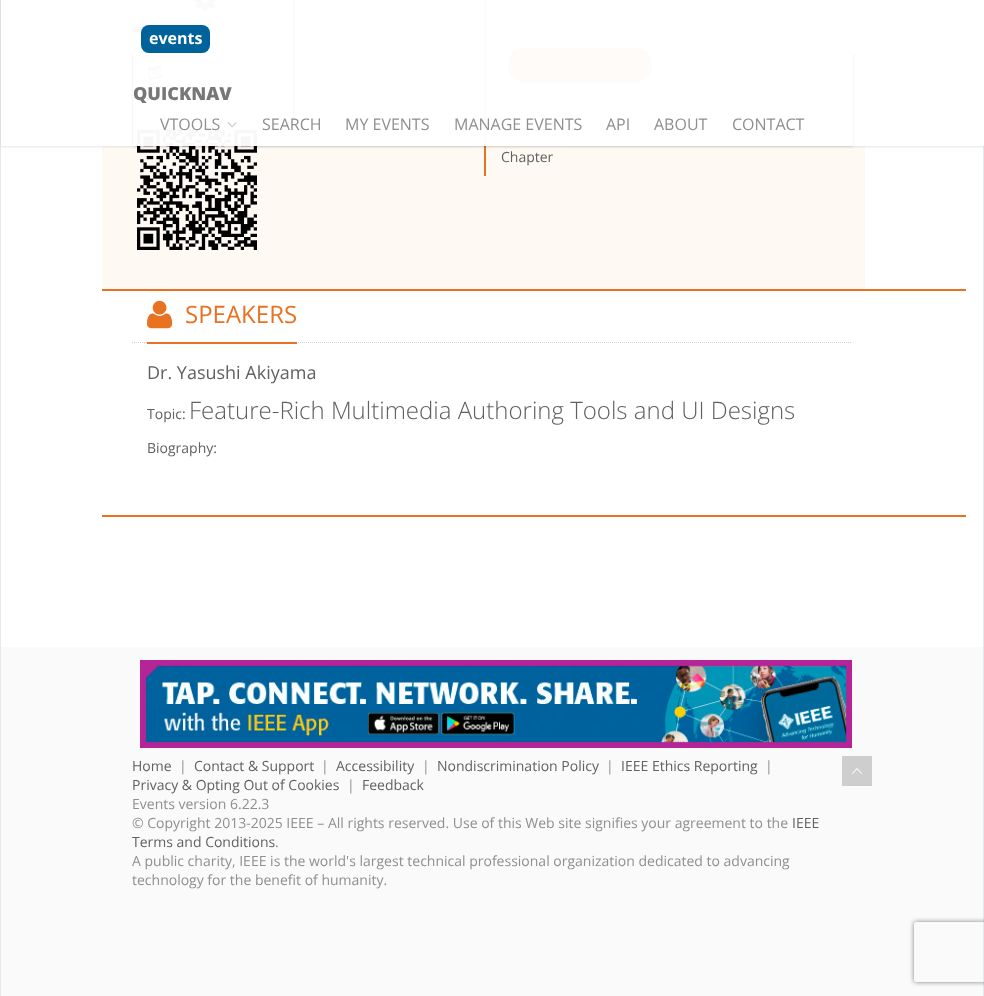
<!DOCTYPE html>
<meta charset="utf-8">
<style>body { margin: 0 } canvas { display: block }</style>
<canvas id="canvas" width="984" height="996"></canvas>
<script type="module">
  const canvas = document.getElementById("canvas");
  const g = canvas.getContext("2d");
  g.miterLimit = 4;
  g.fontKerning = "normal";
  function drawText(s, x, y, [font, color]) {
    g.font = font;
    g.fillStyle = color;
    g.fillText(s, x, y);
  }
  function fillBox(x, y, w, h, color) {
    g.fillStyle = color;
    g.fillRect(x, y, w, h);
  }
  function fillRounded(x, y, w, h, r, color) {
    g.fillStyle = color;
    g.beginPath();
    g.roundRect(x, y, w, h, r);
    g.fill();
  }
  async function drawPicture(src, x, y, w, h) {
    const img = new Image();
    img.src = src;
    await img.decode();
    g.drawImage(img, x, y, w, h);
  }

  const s1 = ["bold 16px Open Sans", "#FFFFFF"];
  const s2 = ["800 18px Open Sans", "#777777"];
  const s3 = ["16px Open Sans", "#8F8F8F"];
  const s4 = ["14px Open Sans", "#616161"];
  const s5 = ["24px Open Sans", "#E87222"];
  const s6 = ["18px Open Sans", "#616161"];
  const s7 = ["300 24px Open Sans", "#616161"];
  const s8 = ["14px Open Sans", "#8F8F8F"];

  fillBox(0, 0, 984, 996, "#FFFFFF");
  fillBox(983, 0, 1, 996, "#E4E9F0");
  fillBox(0, 0, 1, 996, "#E4E9F0");
  fillBox(102, 0, 763, 289, "#FFF9F3");
  await drawPicture("pic2.png", 193, 0, 24, 11);
  await drawPicture("pic3.png", 132, 26, 12, 16);
  await drawPicture("pic4.png", 147, 64, 16, 16);
  await drawPicture("pic5.png", 147, 84, 16, 15);
  await drawPicture("pic6.png", 137, 130, 120, 120);
  fillBox(293, 0, 2, 123, "#E87222");
  g.beginPath();
  g.moveTo(310, 73.5);
  g.lineTo(469, 73.5);
  g.strokeStyle = "#D2D2D2";
  g.setLineDash([1, 1]);
  g.stroke();
  fillBox(484, 0, 2, 176, "#E87222");
  g.fillStyle = "#CB7E2B";
  g.beginPath();
  g.moveTo(508, 65);
  g.lineTo(508, 66);
  g.bezierCurveTo(508, 75, 515, 82, 524, 82);
  g.lineTo(636, 82);
  g.bezierCurveTo(645, 82, 652, 75, 652, 66);
  g.lineTo(652, 65);
  g.bezierCurveTo(651, 73, 645, 80, 636, 80);
  g.lineTo(524, 80);
  g.bezierCurveTo(515, 80, 509, 73, 508, 65);
  g.closePath();
  g.fill();
  fillRounded(508, 48, 144, 32, 16, "#E87222");
  g.save();
  g.beginPath();
  g.moveTo(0, 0);
  g.lineTo(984, 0);
  g.lineTo(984, 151);
  g.lineTo(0, 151);
  g.closePath();
  g.moveTo(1, 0);
  g.lineTo(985, 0);
  g.lineTo(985, 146);
  g.lineTo(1, 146);
  g.closePath();
  g.clip("evenodd");
  g.fillStyle = "rgba(0, 0, 0, 0.1)";
  g.filter = "blur(1px)";
  g.beginPath();
  g.rect(1, 1, 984, 146);
  g.fill();
  g.filter = "none";
  g.restore();
  fillBox(102, 0, 882, 146, "rgba(255, 255, 255, 0.97)");
  fillRounded(141, 25, 69, 28, 8, "#00629B");
  drawText("events", 149, 44, s1);
  g.save();
  g.beginPath();
  g.moveTo(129, 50);
  g.lineTo(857, 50);
  g.lineTo(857, 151);
  g.lineTo(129, 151);
  g.closePath();
  g.moveTo(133, 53);
  g.lineTo(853, 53);
  g.lineTo(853, 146);
  g.lineTo(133, 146);
  g.closePath();
  g.clip("evenodd");
  g.fillStyle = "rgba(0, 0, 0, 0.1)";
  g.filter = "blur(1px)";
  g.beginPath();
  g.rect(133, 54, 720, 93);
  g.fill();
  g.filter = "none";
  g.restore();
  drawText("QUICKNAV", 133, 100, s2);
  drawText("VTOOLS", 160, 130, s3);
  await drawPicture("pic1.png", 227, 122, 10, 6);
  drawText("SEARCH", 262, 130, s3);
  drawText("MY EVENTS", 345, 130, s3);
  drawText("MANAGE EVENTS", 454, 130, s3);
  drawText("API", 606, 130, s3);
  drawText("ABOUT", 654, 130, s3);
  drawText("CONTACT", 732, 130, s3);
  drawText("Chapter", 501, 162, s4);
  fillBox(102, 289, 864, 2, "#E87222");
  g.beginPath();
  g.moveTo(132, 342.5);
  g.lineTo(852, 342.5);
  g.stroke();
  fillBox(147, 342, 150, 2, "#E87222");
  await drawPicture("pic7.png", 147, 300, 26, 29);
  drawText("SPEAKERS", 185, 323, s5);
  drawText("Dr. Yasushi Akiyama", 147, 379, s6);
  drawText("Topic:", 147, 419, s4);
  drawText("Feature-Rich Multimedia Authoring Tools and UI Designs", 189, 419, s7);
  drawText("Biography:", 147, 453, s4);
  fillBox(102, 515, 864, 2, "#E87222");
  fillBox(1, 647, 982, 349, "#FAFAFA");
  await drawPicture("pic8.png", 140, 660, 712, 88);
  drawText("Home", 132, 771, s4);
  drawText("|", 179, 771, s8);
  drawText("Contact & Support", 194, 771, s4);
  drawText("|", 321, 771, s8);
  drawText("Accessibility", 336, 771, s4);
  drawText("|", 422, 771, s8);
  drawText("Nondiscrimination Policy", 437, 771, s4);
  drawText("|", 606, 771, s8);
  drawText("IEEE Ethics Reporting", 621, 771, s4);
  drawText("|", 765, 771, s8);
  fillBox(842, 756, 30, 30, "#CECECE");
  await drawPicture("pic9.png", 852, 768, 10, 6);
  drawText("Privacy & Opting Out of Cookies", 132, 790, s4);
  drawText("|", 347, 790, s8);
  drawText("Feedback", 362, 790, s4);
  drawText("Events version 6.22.3", 132, 809, s8);
  drawText("© Copyright 2013-2025 IEEE – All rights reserved. Use of this Web site signifies your agreement to the", 132, 828, s8);
  drawText("IEEE", 792, 828, s4);
  drawText("Terms and Conditions", 132, 847, s4);
  drawText(".", 275, 847, s8);
  drawText("A public charity, IEEE is the world's largest technical professional organization dedicated to advancing", 132, 866, s8);
  drawText("technology for the benefit of humanity.", 132, 885, s8);
  g.save();
  g.beginPath();
  g.moveTo(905, 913);
  g.lineTo(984, 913);
  g.lineTo(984, 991);
  g.lineTo(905, 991);
  g.closePath();
  g.moveTo(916, 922);
  g.lineTo(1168, 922);
  g.bezierCurveTo(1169, 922, 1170, 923, 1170, 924);
  g.lineTo(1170, 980);
  g.bezierCurveTo(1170, 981, 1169, 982, 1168, 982);
  g.lineTo(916, 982);
  g.bezierCurveTo(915, 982, 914, 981, 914, 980);
  g.lineTo(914, 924);
  g.bezierCurveTo(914, 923, 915, 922, 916, 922);
  g.closePath();
  g.clip("evenodd");
  g.fillStyle = "#808080";
  g.filter = "blur(2.5px)";
  g.beginPath();
  g.roundRect(914, 922, 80, 60, 2);
  g.fill();
  g.filter = "none";
  g.restore();
</script>
